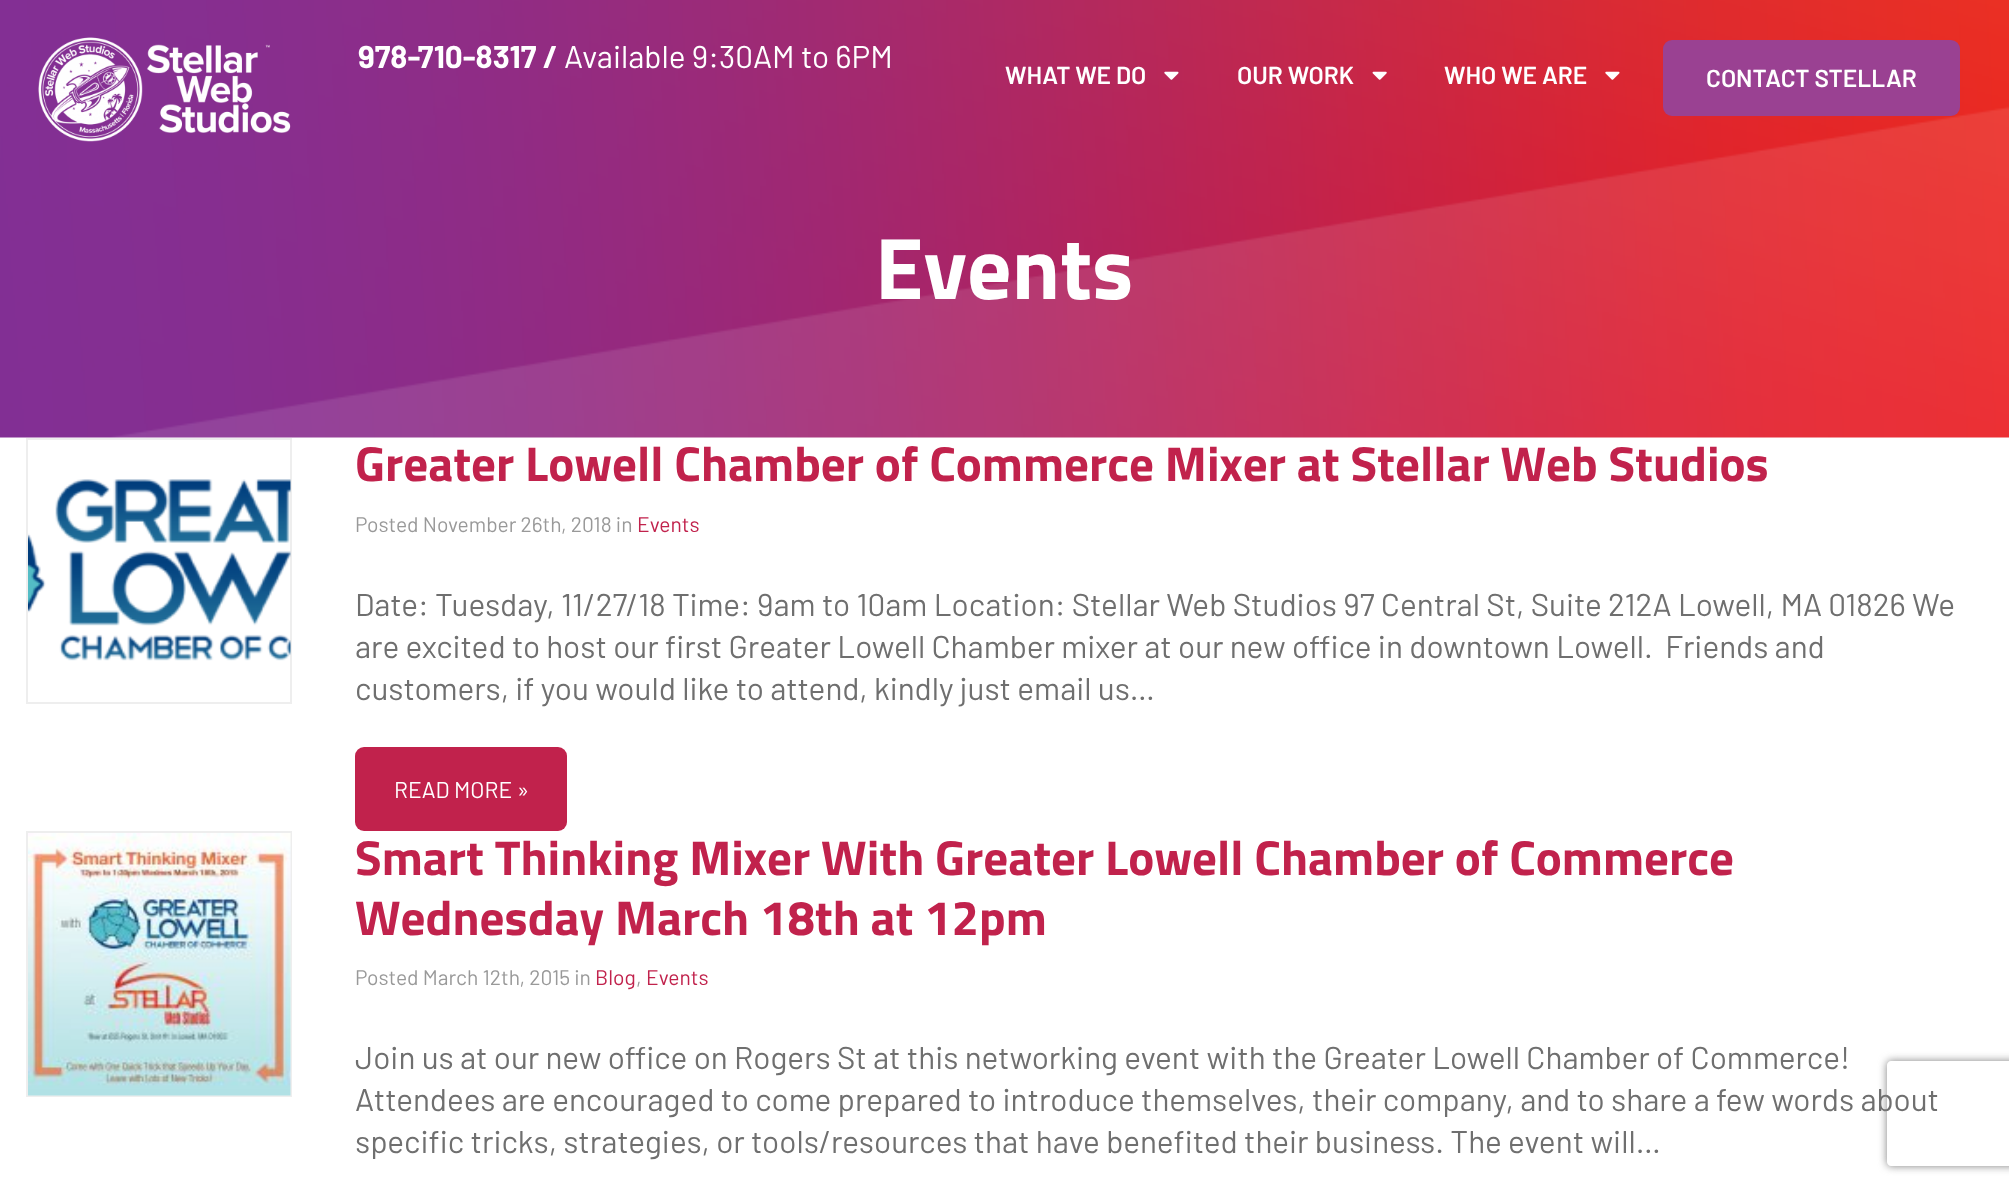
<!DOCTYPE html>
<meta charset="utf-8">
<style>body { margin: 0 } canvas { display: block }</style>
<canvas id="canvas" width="2009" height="1189"></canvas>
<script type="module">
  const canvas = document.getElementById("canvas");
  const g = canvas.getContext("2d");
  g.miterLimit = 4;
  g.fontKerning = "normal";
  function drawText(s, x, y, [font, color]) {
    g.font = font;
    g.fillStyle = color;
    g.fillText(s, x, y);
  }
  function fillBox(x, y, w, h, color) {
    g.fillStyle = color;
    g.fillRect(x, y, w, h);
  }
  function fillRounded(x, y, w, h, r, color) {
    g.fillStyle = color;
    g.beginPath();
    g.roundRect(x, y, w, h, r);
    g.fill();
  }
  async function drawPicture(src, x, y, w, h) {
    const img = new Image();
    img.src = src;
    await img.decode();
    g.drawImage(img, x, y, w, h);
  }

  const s1 = ["bold 31.5px Barlow", "#FFFFFF"];
  const s2 = ["31.5px Barlow", "#FFFFFF"];
  const s3 = ["600 24.5px Barlow", "#FFFFFF"];
  const s4 = ["bold 87.5px Sunflower", "#FFFFFF"];
  const s5 = ["bold 49px Sunflower", "#C1224C"];
  const s6 = ["21px Barlow", "#999999"];
  const s7 = ["21px Barlow", "#C1224C"];
  const s8 = ["31.5px Barlow", "#6F6F6F"];
  const s9 = ["22.75px Barlow", "#FFFFFF"];

  fillBox(0, 0, 2009, 1189, "#FFFFFF");
  await drawPicture("pic1.png", 0, 0, 2009, 438);
  await drawPicture("pic2.png", 38, 37, 253, 105);
  drawText("978-710-8317 /", 358, 68, s1);
  drawText("Available 9:30AM to 6PM", 564, 68, s2);
  drawText("WHAT WE DO", 1005, 84, s3);
  await drawPicture("pic3.png", 1164, 71, 15, 9);
  drawText("OUR WORK", 1237, 84, s3);
  await drawPicture("pic4.png", 1372, 71, 15, 9);
  drawText("WHO WE ARE", 1444, 84, s3);
  await drawPicture("pic5.png", 1605, 71, 15, 9);
  fillRounded(1663, 40, 297, 76, 9, "#9A4192");
  drawText("CONTACT STELLAR", 1706, 87, s3);
  drawText("Events", 875, 299, s4);
  g.strokeStyle = "#EEEEEE";
  g.lineWidth = 2;
  g.strokeRect(27, 439, 264, 264);
  await drawPicture("pic6.png", 28, 479, 263, 182);
  drawText("Greater Lowell Chamber of Commerce Mixer at Stellar Web Studios", 355, 481, s5);
  drawText("Posted November 26th, 2018 in", 355, 532, s6);
  drawText("Events", 637, 532, s7);
  drawText("Date: Tuesday, 11/27/18 Time: 9am to 10am Location: Stellar Web Studios 97 Central St, Suite 212A Lowell, MA 01826 We", 355, 616, s8);
  drawText("are excited to host our first Greater Lowell Chamber mixer at our new office in downtown Lowell.  Friends and", 355, 658, s8);
  drawText("customers, if you would like to attend, kindly just email us…", 355, 700, s8);
  fillRounded(355, 747, 212, 84, 9, "#C1224C");
  drawText("READ MORE »", 394, 798, s9);
  g.strokeRect(27, 832, 264, 264);
  await drawPicture("pic7.png", 28, 833, 263, 263);
  drawText("Smart Thinking Mixer With Greater Lowell Chamber of Commerce", 355, 875, s5);
  drawText("Wednesday March 18th at 12pm", 355, 935, s5);
  drawText("Posted March 12th, 2015 in", 355, 985, s6);
  drawText("Blog", 595, 985, s7);
  drawText(",", 636, 985, s6);
  drawText("Events", 646, 985, s7);
  drawText("Join us at our new office on Rogers St at this networking event with the Greater Lowell Chamber of Commerce!", 355, 1069, s8);
  drawText("Attendees are encouraged to come prepared to introduce themselves, their company, and to share a few words about", 355, 1111, s8);
  drawText("specific tricks, strategies, or tools/resources that have benefited their business. The event will…", 355, 1153, s8);
  g.save();
  g.beginPath();
  g.moveTo(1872, 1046);
  g.lineTo(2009, 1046);
  g.lineTo(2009, 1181);
  g.lineTo(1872, 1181);
  g.closePath();
  g.moveTo(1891, 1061);
  g.lineTo(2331, 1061);
  g.bezierCurveTo(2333, 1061, 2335, 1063, 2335, 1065);
  g.lineTo(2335, 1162);
  g.bezierCurveTo(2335, 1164, 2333, 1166, 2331, 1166);
  g.lineTo(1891, 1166);
  g.bezierCurveTo(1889, 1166, 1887, 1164, 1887, 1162);
  g.lineTo(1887, 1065);
  g.bezierCurveTo(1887, 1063, 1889, 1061, 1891, 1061);
  g.closePath();
  g.clip("evenodd");
  g.fillStyle = "#808080";
  g.filter = "blur(4.5px)";
  g.beginPath();
  g.roundRect(1887, 1061, 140, 105, 4);
  g.fill();
  g.filter = "none";
  g.restore();
</script>
